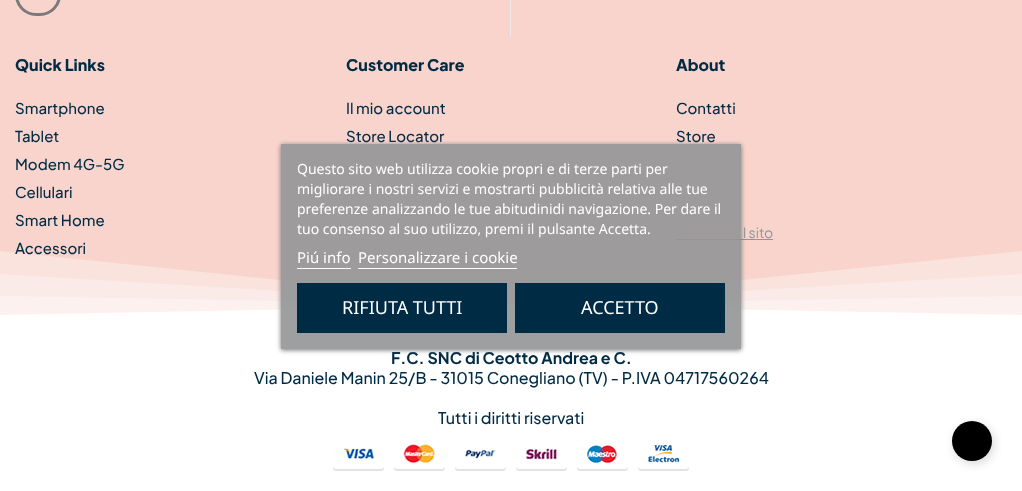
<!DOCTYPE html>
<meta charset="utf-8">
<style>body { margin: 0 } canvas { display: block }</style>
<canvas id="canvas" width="1022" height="491"></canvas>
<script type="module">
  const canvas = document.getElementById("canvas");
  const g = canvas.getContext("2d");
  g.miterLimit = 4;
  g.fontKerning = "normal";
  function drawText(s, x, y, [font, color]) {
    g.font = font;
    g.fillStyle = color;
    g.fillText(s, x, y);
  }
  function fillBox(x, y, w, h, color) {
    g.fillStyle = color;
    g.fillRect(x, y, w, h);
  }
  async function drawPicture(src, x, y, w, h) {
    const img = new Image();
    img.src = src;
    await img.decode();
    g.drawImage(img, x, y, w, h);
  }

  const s1 = ["800 16px Plus Jakarta Sans", "#002B44"];
  const s2 = ["500 15px Plus Jakarta Sans", "#002B44"];
  const s3 = ["14px Plus Jakarta Sans", "#929597"];
  const s4 = ["bold 16px Plus Jakarta Sans", "#002B44"];
  const s5 = ["500 16px Plus Jakarta Sans", "#002B44"];
  const s6 = ["14px Noto Sans", "#FFFFFF"];
  const s7 = ["15px Noto Sans", "#FFFFFF"];
  const s8 = ["18px Noto Sans", "#FFFFFF"];

  fillBox(0, 0, 1022, 491, "#FFFFFF");
  fillBox(0, 0, 1022, 315, "#F8D4CD");
  fillBox(510, 0, 1, 36, "#EAEAEA");
  g.beginPath();
  g.roundRect(16.5, -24.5, 43, 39, 21.5);
  g.strokeStyle = "#7A7A7A";
  g.lineWidth = 3;
  g.stroke();
  drawText("Quick Links", 15, 71, s1);
  drawText("Smartphone", 15, 114, s2);
  drawText("Tablet", 15, 142, s2);
  drawText("Modem 4G-5G", 15, 170, s2);
  drawText("Cellulari", 15, 198, s2);
  drawText("Smart Home", 15, 226, s2);
  g.fillStyle = "rgba(255, 255, 255, 0.33)";
  g.beginPath();
  g.moveTo(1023, 319);
  g.lineTo(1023, 251);
  g.lineTo(511, 304);
  g.lineTo(-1, 251);
  g.lineTo(-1, 319);
  g.closePath();
  g.fill();
  drawText("Accessori", 15, 254, s2);
  drawText("Customer Care", 346, 71, s1);
  drawText("Il mio account", 346, 114, s2);
  drawText("Store Locator", 346, 142, s2);
  drawText("About", 676, 71, s1);
  drawText("Contatti", 676, 114, s2);
  drawText("Store", 676, 142, s2);
  drawText("l sito", 743, 238, s3);
  fillBox(676, 239, 97, 1, "#929597");
  g.fillStyle = "rgba(255, 255, 255, 0.33)";
  g.beginPath();
  g.moveTo(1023, 319);
  g.lineTo(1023, 274);
  g.lineTo(511, 305);
  g.lineTo(-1, 274);
  g.lineTo(-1, 319);
  g.closePath();
  g.fill();
  g.beginPath();
  g.moveTo(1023, 319);
  g.lineTo(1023, 296);
  g.lineTo(511, 305);
  g.lineTo(-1, 296);
  g.lineTo(-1, 319);
  g.closePath();
  g.fill();
  g.fillStyle = "#FFFFFF";
  g.beginPath();
  g.moveTo(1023, 319);
  g.lineTo(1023, 315);
  g.lineTo(511, 305);
  g.lineTo(-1, 315);
  g.lineTo(-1, 319);
  g.closePath();
  g.fill();
  drawText("F.C. SNC di Ceotto Andrea e C.", 391, 364, s4);
  drawText("Via Daniele Manin 25/B - 31015 Conegliano (TV) - P.IVA 04717560264", 254, 384, s5);
  drawText("Tutti i diritti riservati", 438, 424, s5);
  await drawPicture("pic1.png", 333, 444, 356, 27);
  g.save();
  g.beginPath();
  g.moveTo(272, 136);
  g.lineTo(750, 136);
  g.lineTo(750, 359);
  g.lineTo(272, 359);
  g.closePath();
  g.moveTo(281, 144);
  g.lineTo(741, 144);
  g.lineTo(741, 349);
  g.lineTo(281, 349);
  g.closePath();
  g.clip("evenodd");
  g.fillStyle = "#707070";
  g.filter = "blur(2.5px)";
  g.beginPath();
  g.rect(281, 145, 460, 205);
  g.fill();
  g.filter = "none";
  g.restore();
  fillBox(281, 144, 460, 205, "rgba(146, 149, 151, 0.9)");
  drawText("Questo sito web utilizza cookie propri e di terze parti per", 297, 174, s6);
  drawText("migliorare i nostri servizi e mostrarti pubblicità relativa alle tue", 297, 194, s6);
  drawText("preferenze analizzando le tue abitudinidi navigazione. Per dare il", 297, 214, s6);
  drawText("tuo consenso al suo utilizzo, premi il pulsante Accetta.", 297, 234, s6);
  drawText("Piú info", 297, 263, s7);
  fillBox(297, 268, 54, 1, "#FFFFFF");
  drawText("Personalizzare i cookie", 358, 263, s7);
  fillBox(358, 268, 159, 1, "#FFFFFF");
  fillBox(297, 283, 210, 50, "#002B44");
  drawText("RIFIUTA TUTTI", 342, 314, s8);
  fillBox(515, 283, 210, 50, "#002B44");
  drawText("ACCETTO", 581, 314, s8);
  g.fillStyle = "rgba(0, 0, 0, 0.15)";
  g.filter = "blur(5px)";
  g.beginPath();
  g.roundRect(954, 424, 40, 40, 20);
  g.fill();
  g.filter = "none";
  g.fillStyle = "#000000";
  g.beginPath();
  g.arc(972, 441, 20, 0, Math.PI * 2);
  g.fill();
</script>
